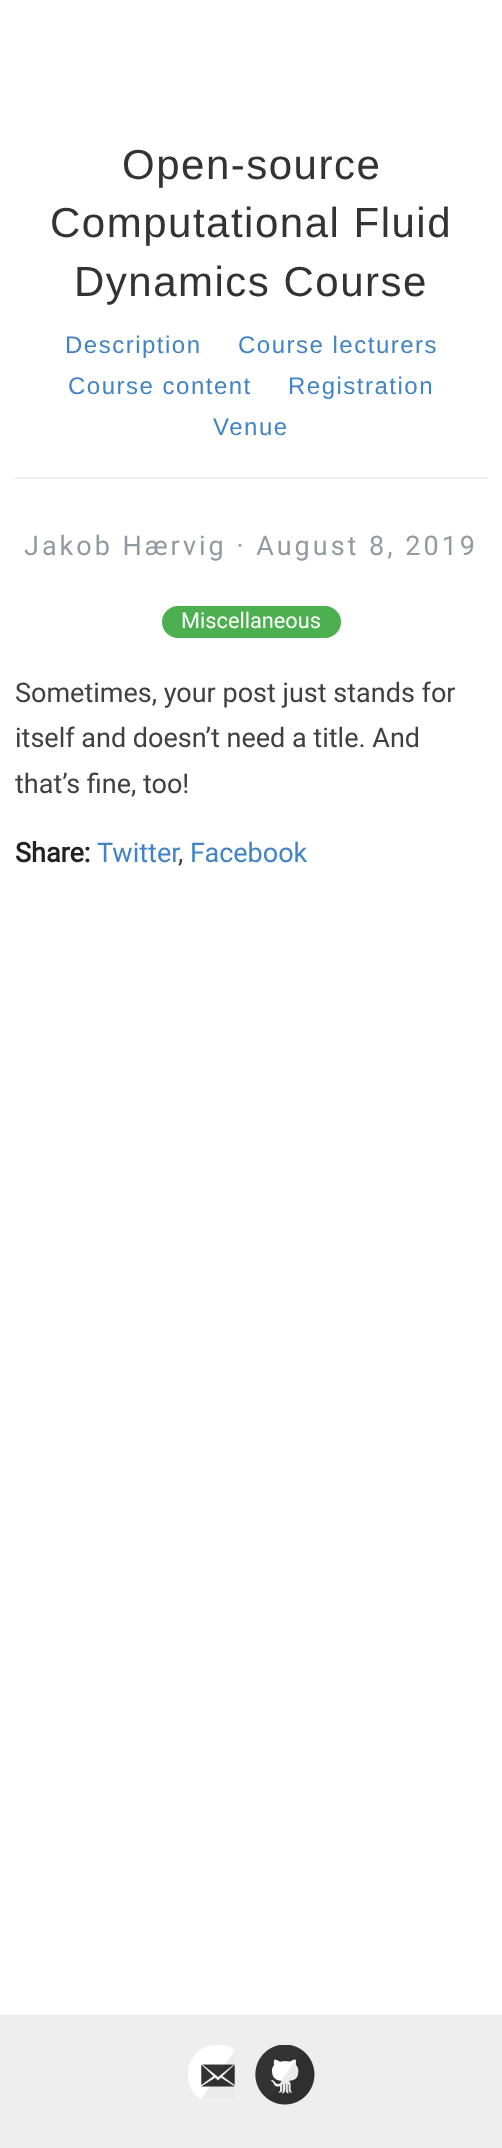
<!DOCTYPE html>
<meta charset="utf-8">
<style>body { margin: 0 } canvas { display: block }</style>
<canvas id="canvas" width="502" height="2148"></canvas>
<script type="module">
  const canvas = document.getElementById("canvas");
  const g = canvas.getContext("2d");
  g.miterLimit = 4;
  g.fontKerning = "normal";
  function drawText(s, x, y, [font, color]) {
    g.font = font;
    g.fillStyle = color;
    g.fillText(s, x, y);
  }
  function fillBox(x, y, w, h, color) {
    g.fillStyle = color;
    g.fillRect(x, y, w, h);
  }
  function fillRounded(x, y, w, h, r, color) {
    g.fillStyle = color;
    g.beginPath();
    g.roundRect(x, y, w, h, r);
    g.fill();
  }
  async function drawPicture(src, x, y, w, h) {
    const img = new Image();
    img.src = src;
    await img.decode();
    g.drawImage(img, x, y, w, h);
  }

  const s1 = ["42px Liberation Sans", "#333333"];
  const s2 = ["24px Liberation Sans", "#4183C4"];
  const s3 = ["27px Roboto", "#939AA1"];
  const s4 = ["21.75px Roboto", "#FFFFFF"];
  const s5 = ["27px Roboto", "#404040"];
  const s6 = ["bold 27px Roboto", "#222222"];
  const s7 = ["27px Roboto", "#4183C4"];

  fillBox(0, 0, 502, 2148, "#FFFFFF");
  fillBox(15, 477, 473, 2, "#EEEEEE");
  g.letterSpacing = "1.5px";
  drawText("Open-source", 122, 179, s1);
  drawText("Computational Fluid", 50, 237, s1);
  drawText("Dynamics Course", 74, 296, s1);
  drawText("Description", 65, 353, s2);
  drawText("Course lecturers", 238, 353, s2);
  drawText("Course content", 68, 394, s2);
  drawText("Registration", 288, 394, s2);
  drawText("Venue", 213, 435, s2);
  g.letterSpacing = "3px";
  drawText("Jakob Hærvig · August 8, 2019", 24, 555, s3);
  fillRounded(162, 606, 179, 32, 16, "#4CAF50");
  g.letterSpacing = "0px";
  drawText("Miscellaneous", 181, 628, s4);
  drawText("Sometimes, your post just stands for", 15, 702, s5);
  drawText("itself and doesn’t need a title. And", 15, 747, s5);
  drawText("that’s fine, too!", 15, 793, s5);
  drawText("Share:", 15, 862, s6);
  drawText("Twitter", 97, 862, s7);
  drawText(",", 178, 862, s5);
  drawText("Facebook", 190, 862, s7);
  fillBox(0, 2015, 502, 133, "#EEEEEE");
  await drawPicture("pic1.png", 188, 2045, 47, 54);
  await drawPicture("pic2.png", 255, 2045, 60, 60);
</script>
